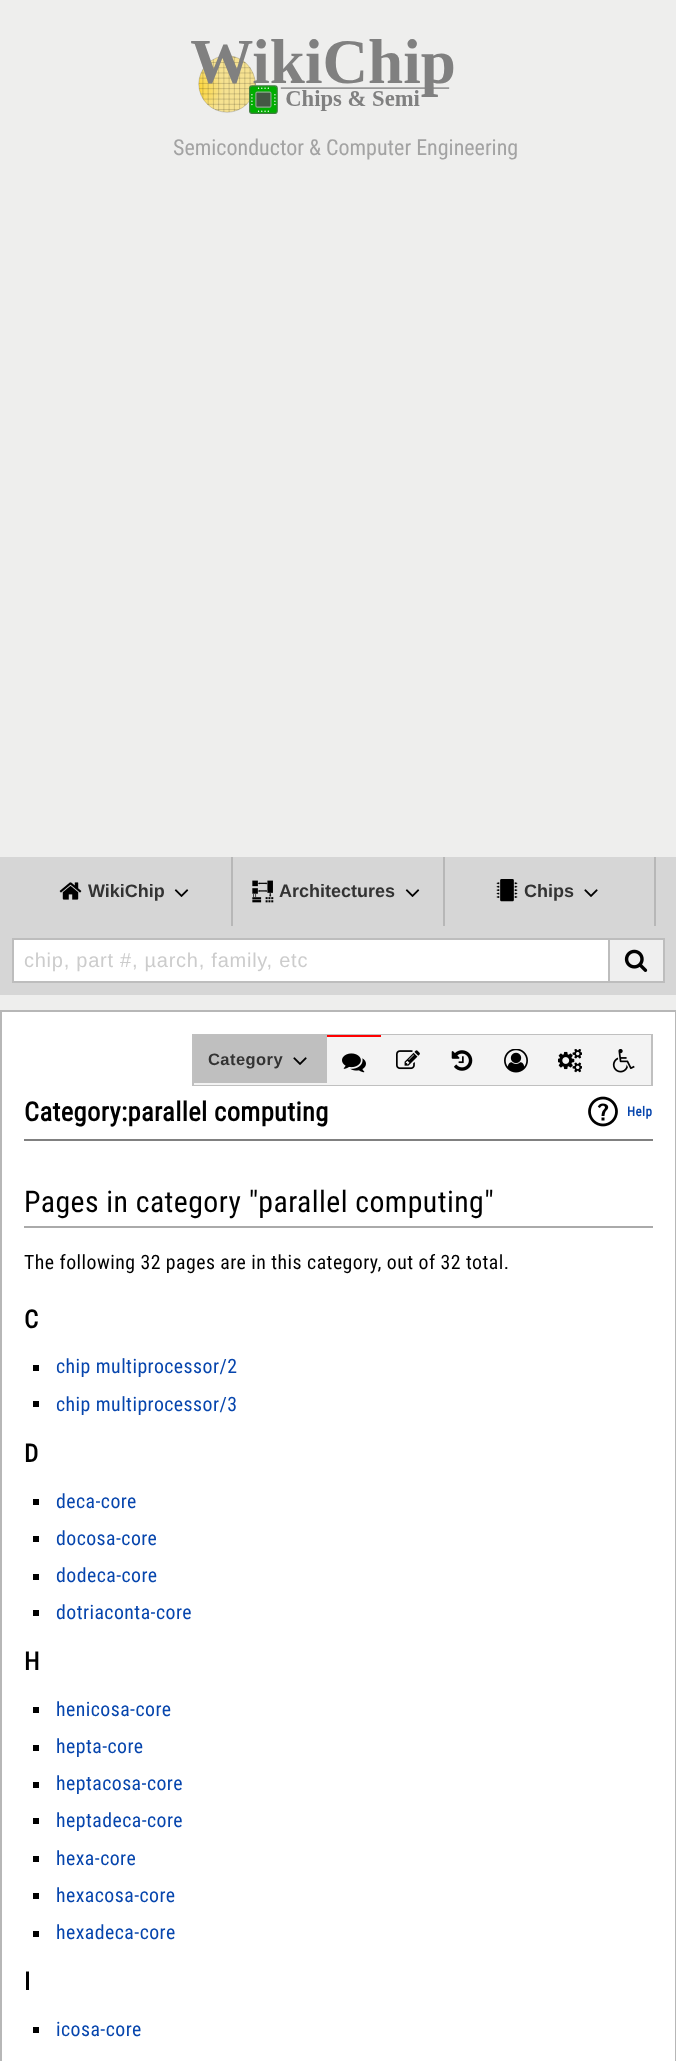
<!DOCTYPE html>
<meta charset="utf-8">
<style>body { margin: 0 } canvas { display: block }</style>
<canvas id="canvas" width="676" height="2061"></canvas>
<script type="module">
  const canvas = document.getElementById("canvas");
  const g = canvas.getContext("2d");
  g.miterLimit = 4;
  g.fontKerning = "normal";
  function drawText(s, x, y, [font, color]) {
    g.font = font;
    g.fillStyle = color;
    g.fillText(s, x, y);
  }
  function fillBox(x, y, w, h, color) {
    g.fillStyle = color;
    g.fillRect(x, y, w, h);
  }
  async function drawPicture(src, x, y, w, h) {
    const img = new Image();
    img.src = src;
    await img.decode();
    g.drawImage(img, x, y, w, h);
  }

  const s1 = ["22px Roboto Condensed", "#A3A3A3"];
  const s2 = ["bold 18px Liberation Sans", "#333333"];
  const s3 = ["20px Liberation Sans", "#CCCCCC"];
  const s4 = ["bold 16.5px Liberation Sans", "#333333"];
  const s5 = ["bold 26.4px Roboto Condensed", "#000000"];
  const s6 = ["bold 13px Roboto Condensed", "#0645AD"];
  const s7 = ["29.75px Roboto Condensed", "#000000"];
  const s8 = ["19.8px Roboto Condensed", "#000000"];
  const s9 = ["bold 25px Roboto Condensed", "#000000"];
  const s10 = ["19.8px Roboto Condensed", "#0645AD"];

  fillBox(0, 0, 676, 2061, "#EEEEED");
  await drawPicture("pic1.png", 191, 39, 263, 75);
  drawText("Semiconductor & Computer Engineering", 173, 155, s1);
  fillBox(0, 857, 676, 138, "#D6D6D6");
  fillBox(231, 857, 2, 69, "#B7B7B7");
  await drawPicture("pic2.png", 59, 882, 23, 18);
  drawText("WikiChip", 88, 897, s2);
  await drawPicture("pic3.png", 174, 889, 15, 8);
  fillBox(443, 857, 2, 69, "#B7B7B7");
  await drawPicture("pic4.png", 252, 880, 22, 23);
  drawText("Architectures", 279, 897, s2);
  await drawPicture("pic3.png", 405, 889, 15, 8);
  fillBox(654, 857, 2, 69, "#B7B7B7");
  await drawPicture("pic5.png", 496, 879, 22, 23);
  drawText("Chips", 524, 897, s2);
  await drawPicture("pic6.png", 584, 889, 14, 8);
  fillBox(14, 940, 594, 41, "#FFFFFF");
  g.strokeStyle = "#BDBDBD";
  g.lineWidth = 2;
  g.strokeRect(13, 939, 598, 43);
  g.letterSpacing = "0.75px";
  drawText("chip, part #, µarch, family, etc", 24, 967, s3);
  g.fillStyle = "#EFEFEF";
  g.beginPath();
  g.rect(609, 939, 55, 43);
  g.fill();
  g.stroke();
  await drawPicture("pic7.png", 624, 949, 24, 23);
  g.fillStyle = "#FFFFFF";
  g.beginPath();
  g.rect(1, 1011, 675, 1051);
  g.fill();
  g.strokeStyle = "#B7B7B7";
  g.stroke();
  fillBox(24, 1139, 629, 2, "#808080");
  g.strokeStyle = "#C0C0C0";
  g.strokeRect(193, 1035, 459, 50);
  fillBox(194, 1035, 457, 50, "#F3F3F3");
  fillBox(194, 1035, 133, 48, "#BFBFBF");
  g.letterSpacing = "0.45px";
  drawText("Category", 208, 1065, s4);
  await drawPicture("pic8.png", 293, 1057, 14, 8);
  fillBox(327, 1035, 54, 2, "#FF0000");
  await drawPicture("pic9.png", 342, 1053, 24, 20);
  await drawPicture("pic10.png", 396, 1050, 24, 20);
  await drawPicture("pic11.png", 451, 1050, 22, 21);
  await drawPicture("pic12.png", 504, 1049, 24, 24);
  await drawPicture("pic13.png", 558, 1049, 24, 24);
  await drawPicture("pic14.png", 612, 1049, 23, 24);
  drawText("Category:parallel computing", 24, 1121, s5);
  await drawPicture("pic15.png", 588, 1096, 30, 31);
  drawText("Help", 627, 1116, s6);
  fillBox(24, 1226, 629, 2, "#AAAAAA");
  drawText("Pages in category \"parallel computing\"", 24, 1212, s7);
  drawText("The following 32 pages are in this category, out of 32 total.", 24, 1269, s8);
  drawText("C", 24, 1328, s9);
  fillBox(33, 1365, 6, 6, "#000000");
  drawText("chip multiprocessor/2", 56, 1373, s10);
  fillBox(33, 1401, 6, 6, "#000000");
  drawText("chip multiprocessor/3", 56, 1411, s10);
  drawText("D", 24, 1462, s9);
  fillBox(33, 1499, 6, 6, "#000000");
  drawText("deca-core", 56, 1508, s10);
  fillBox(33, 1536, 6, 6, "#000000");
  drawText("docosa-core", 56, 1545, s10);
  fillBox(33, 1574, 6, 6, "#000000");
  drawText("dodeca-core", 56, 1582, s10);
  fillBox(33, 1610, 6, 6, "#000000");
  drawText("dotriaconta-core", 56, 1619, s10);
  drawText("H", 24, 1670, s9);
  fillBox(33, 1707, 6, 6, "#000000");
  drawText("henicosa-core", 56, 1716, s10);
  fillBox(33, 1745, 6, 6, "#000000");
  drawText("hepta-core", 56, 1753, s10);
  fillBox(33, 1782, 6, 6, "#000000");
  drawText("heptacosa-core", 56, 1790, s10);
  fillBox(33, 1818, 6, 6, "#000000");
  drawText("heptadeca-core", 56, 1827, s10);
  fillBox(33, 1856, 6, 6, "#000000");
  drawText("hexa-core", 56, 1865, s10);
  fillBox(33, 1893, 6, 6, "#000000");
  drawText("hexacosa-core", 56, 1902, s10);
  fillBox(33, 1931, 6, 6, "#000000");
  drawText("hexadeca-core", 56, 1939, s10);
  drawText("I", 24, 1990, s9);
  fillBox(33, 2027, 6, 6, "#000000");
  drawText("icosa-core", 56, 2036, s10);
</script>
